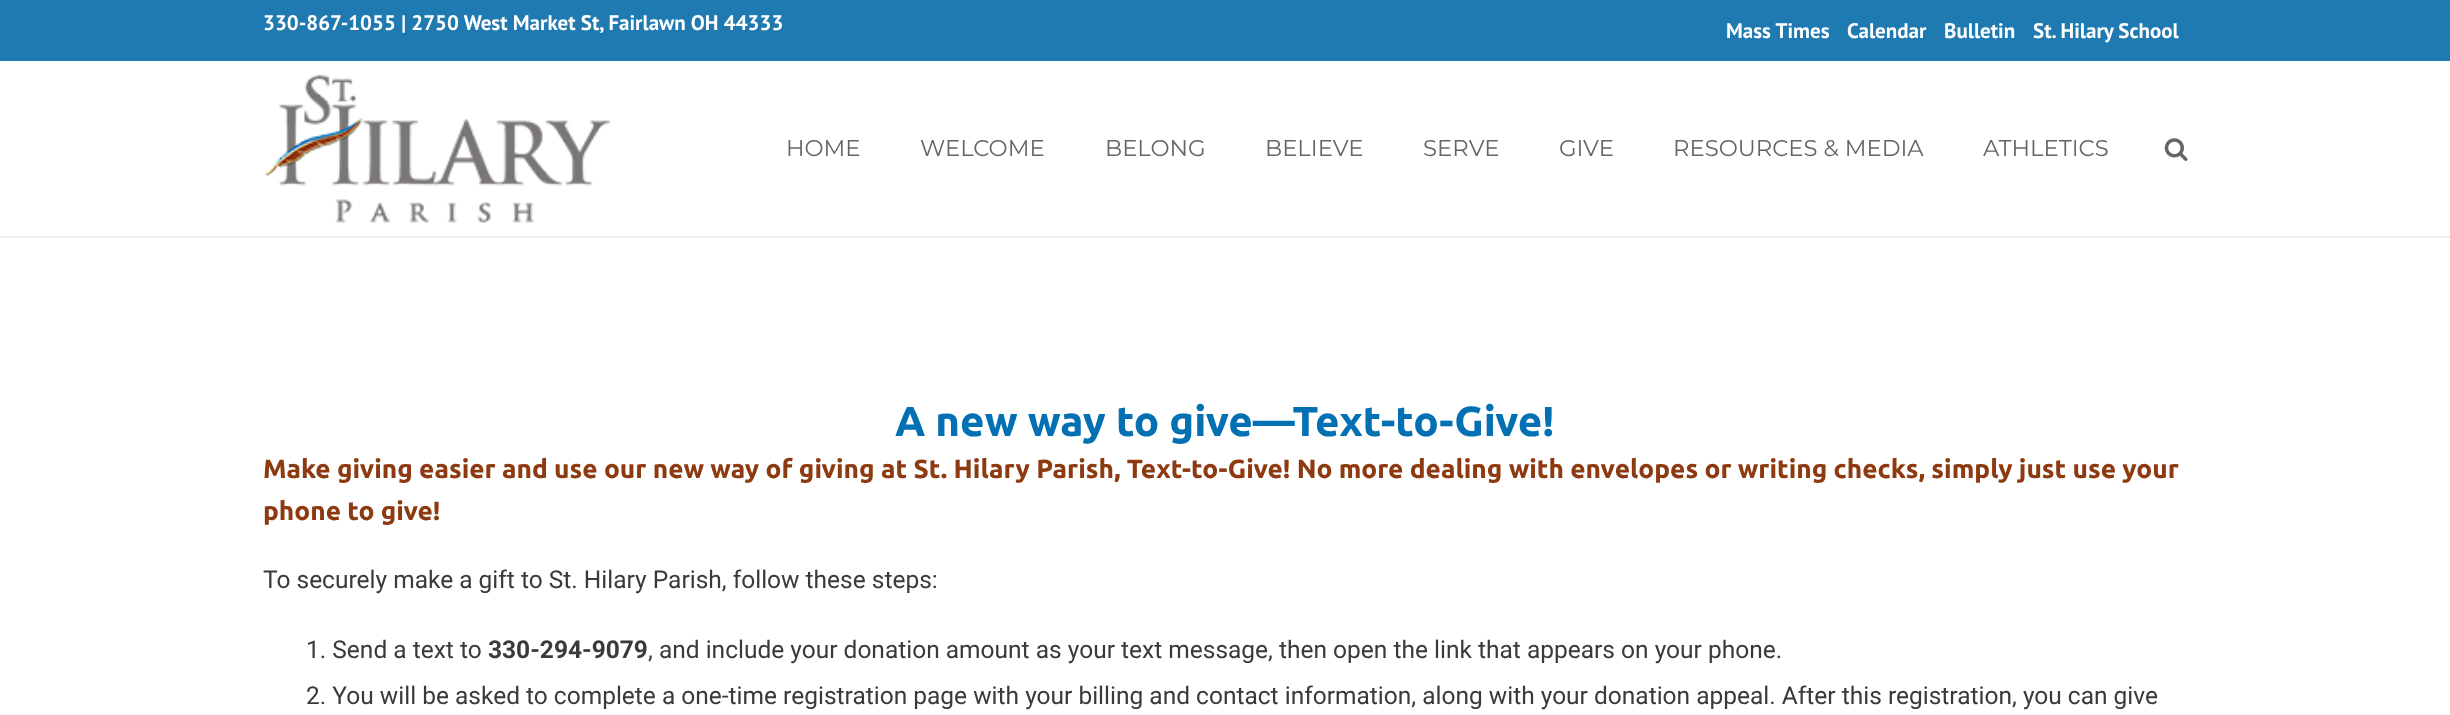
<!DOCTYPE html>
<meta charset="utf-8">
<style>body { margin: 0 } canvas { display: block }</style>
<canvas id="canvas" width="2450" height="715"></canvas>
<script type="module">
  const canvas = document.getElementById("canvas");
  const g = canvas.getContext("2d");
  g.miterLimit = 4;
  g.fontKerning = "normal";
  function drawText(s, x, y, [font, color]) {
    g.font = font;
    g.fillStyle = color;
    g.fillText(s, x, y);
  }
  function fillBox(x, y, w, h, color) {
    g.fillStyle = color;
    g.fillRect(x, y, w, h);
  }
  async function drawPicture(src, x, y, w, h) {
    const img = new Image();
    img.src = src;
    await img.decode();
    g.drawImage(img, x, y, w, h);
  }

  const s1 = ["bold 21px PT Sans", "#FFFFFF"];
  const s2 = ["100 22.75px Montserrat", "#656565"];
  const s3 = ["bold 42px Ubuntu", "#0370B3"];
  const s4 = ["bold 26.25px Ubuntu", "#8D3A10"];
  const s5 = ["24.5px Roboto", "#3A3A3A"];
  const s6 = ["bold 24.5px Roboto", "#3A3A3A"];

  fillBox(0, 0, 2450, 715, "#FFFFFF");
  fillBox(0, 0, 2450, 61, "#1F7AB1");
  drawText("330-867-1055 | 2750 West Market St, Fairlawn OH 44333", 263, 30, s1);
  drawText("Mass Times", 1726, 38, s1);
  drawText("Calendar", 1847, 38, s1);
  drawText("Bulletin", 1944, 38, s1);
  drawText("St. Hilary School", 2033, 38, s1);
  fillBox(0, 236, 2450, 2, "#EDEDED");
  await drawPicture("pic1.png", 264, 74, 347, 149);
  drawText("HOME", 786, 156, s2);
  drawText("WELCOME", 920, 156, s2);
  drawText("BELONG", 1105, 156, s2);
  drawText("BELIEVE", 1265, 156, s2);
  drawText("SERVE", 1423, 156, s2);
  drawText("GIVE", 1559, 156, s2);
  drawText("RESOURCES & MEDIA", 1673, 156, s2);
  drawText("ATHLETICS", 1983, 156, s2);
  await drawPicture("pic2.png", 2164, 138, 24, 23);
  drawText("A new way to give—Text-to-Give!", 895, 436, s3);
  drawText("Make giving easier and use our new way of giving at St. Hilary Parish, Text-to-Give! No more dealing with envelopes or writing checks, simply just use your", 263, 478, s4);
  drawText("phone to give!", 263, 520, s4);
  drawText("To securely make a gift to St. Hilary Parish, follow these steps:", 263, 588, s5);
  drawText("1. Send a text to", 306, 658, s5);
  drawText("330-294-9079", 488, 658, s6);
  drawText(", and include your donation amount as your text message, then open the link that appears on your phone.", 648, 658, s5);
  drawText("2. You will be asked to complete a one-time registration page with your billing and contact information, along with your donation appeal. After this registration, you can give", 306, 704, s5);
</script>
